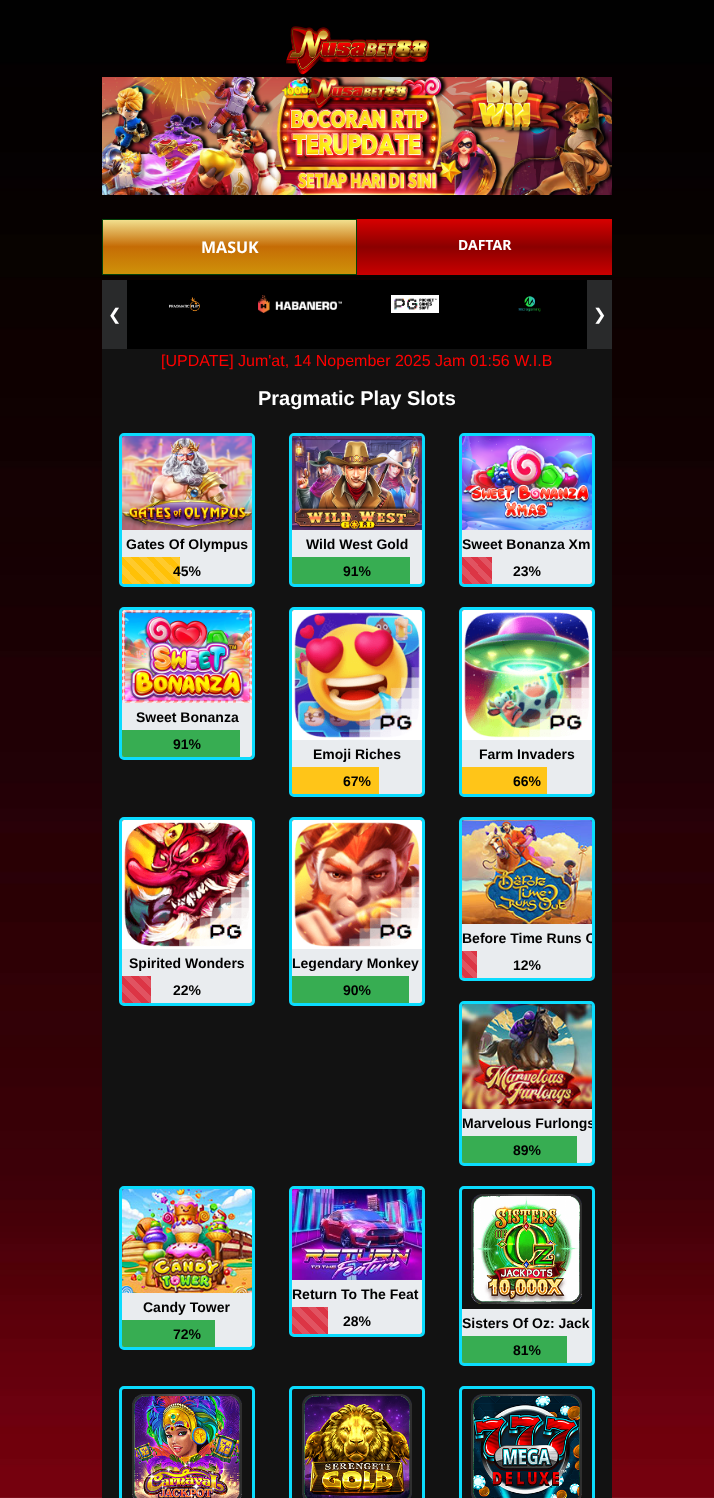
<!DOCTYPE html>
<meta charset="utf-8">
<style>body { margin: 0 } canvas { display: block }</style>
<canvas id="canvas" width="714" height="1498"></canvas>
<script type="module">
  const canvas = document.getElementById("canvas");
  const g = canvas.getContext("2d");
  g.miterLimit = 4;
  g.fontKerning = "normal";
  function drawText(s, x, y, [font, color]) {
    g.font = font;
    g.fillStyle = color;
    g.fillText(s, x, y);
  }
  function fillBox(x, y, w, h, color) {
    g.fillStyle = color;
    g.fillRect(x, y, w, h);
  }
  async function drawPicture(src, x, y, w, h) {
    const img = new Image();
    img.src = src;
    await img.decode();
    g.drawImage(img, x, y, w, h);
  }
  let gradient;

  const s1 = ["bold 16px Noto Sans", "#FFFFFF"];
  const s2 = ["bold 14px Noto Sans", "#FFFFFF"];
  const s3 = ["16px DejaVu Sans", "#FFFFFF"];
  const s4 = ["16px Liberation Sans", "#FF0000"];
  const s5 = ["bold 20px Liberation Sans", "#FFFFFF"];
  const s6 = ["bold 14px Liberation Sans", "#000000"];

  fillBox(0, 0, 714, 1498, "#FFFFFF");
  await drawPicture("pic1.png", 0, 0, 714, 1498);
  await drawPicture("pic2.png", 286, 26, 144, 49);
  await drawPicture("pic3.png", 102, 77, 510, 118);
  gradient = g.createLinearGradient(230, 220, 230, 279);
  gradient.addColorStop(0, "#F2DF8E");
  gradient.addColorStop(0.45, "#C56C05");
  gradient.addColorStop(1, "#D1990A");
  g.fillStyle = gradient;
  g.fillRect(103, 220, 253, 54);
  g.strokeStyle = "#05420A";
  g.strokeRect(102.5, 219.5, 254, 55);
  drawText("MASUK", 201, 253, s1);
  gradient = g.createLinearGradient(485, 219, 485, 281);
  gradient.addColorStop(0, "#D80000");
  gradient.addColorStop(0.45, "#8B0000");
  gradient.addColorStop(1, "#D80000");
  g.fillStyle = gradient;
  g.fillRect(357, 219, 255, 56);
  drawText("DAFTAR", 458, 250, s2);
  fillBox(127, 280, 460, 69, "#000000");
  await drawPicture("pic4.png", 169, 297, 31, 15);
  await drawPicture("pic5.png", 258, 295, 84, 18);
  await drawPicture("pic6.png", 391, 295, 48, 18);
  await drawPicture("pic7.png", 518, 296, 23, 16);
  fillBox(102, 280, 25, 69, "#292A2B");
  drawText("❮", 108, 320, s3);
  fillBox(587, 280, 25, 69, "#292A2B");
  drawText("❯", 593, 320, s3);
  fillBox(102, 349, 510, 1149, "#121212");
  drawText("[UPDATE] Jum'at, 14 Nopember 2025 Jam 01:56 W.I.B", 161, 366, s4);
  drawText("Pragmatic Play Slots", 258, 405, s5);
  g.beginPath();
  g.roundRect(120.5, 434.5, 133, 151, 3.5);
  g.strokeStyle = "#0BDCFE";
  g.lineWidth = 3;
  g.stroke();
  await drawPicture("pic8.png", 122, 436, 130, 94);
  fillBox(122, 530, 130, 27, "#E9ECEF");
  drawText("Gates Of Olympus", 126, 549, s6);
  g.fillStyle = "#E9ECEF";
  g.beginPath();
  g.roundRect(122, 557, 130, 27, [0, 0, 2, 2]);
  g.fill();
  g.fillStyle = "#FFC107";
  g.beginPath();
  g.roundRect(122, 557, 58, 27, [0, 0, 0, 2]);
  g.fill();
  gradient = g.createLinearGradient(122, 573, 138, 557);
  gradient.addColorStop(0.25, "#FFCA2C");
  gradient.addColorStop(0.25, "#FFC107");
  gradient.addColorStop(0.5, "#FFC107");
  gradient.addColorStop(0.5, "#FFCA2C");
  gradient.addColorStop(0.75, "#FFCA2C");
  gradient.addColorStop(0.75, "#FFC107");
  gradient.addColorStop(1, "#FFC107");
  g.fillStyle = gradient;
  g.fillRect(122, 557, 16, 16);
  gradient = g.createLinearGradient(138, 573, 154, 557);
  gradient.addColorStop(0.25, "#FFCA2C");
  gradient.addColorStop(0.25, "#FFC107");
  gradient.addColorStop(0.5, "#FFC107");
  gradient.addColorStop(0.5, "#FFCA2C");
  gradient.addColorStop(0.75, "#FFCA2C");
  gradient.addColorStop(0.75, "#FFC107");
  gradient.addColorStop(1, "#FFC107");
  g.fillStyle = gradient;
  g.fillRect(138, 557, 16, 16);
  gradient = g.createLinearGradient(154, 573, 170, 557);
  gradient.addColorStop(0.25, "#FFCA2C");
  gradient.addColorStop(0.25, "#FFC107");
  gradient.addColorStop(0.5, "#FFC107");
  gradient.addColorStop(0.5, "#FFCA2C");
  gradient.addColorStop(0.75, "#FFCA2C");
  gradient.addColorStop(0.75, "#FFC107");
  gradient.addColorStop(1, "#FFC107");
  g.fillStyle = gradient;
  g.fillRect(154, 557, 16, 16);
  gradient = g.createLinearGradient(170, 573, 186, 557);
  gradient.addColorStop(0.25, "#FFCA2C");
  gradient.addColorStop(0.25, "#FFC107");
  gradient.addColorStop(0.5, "#FFC107");
  gradient.addColorStop(0.5, "#FFCA2C");
  gradient.addColorStop(0.75, "#FFCA2C");
  gradient.addColorStop(0.75, "#FFC107");
  gradient.addColorStop(1, "#FFC107");
  g.fillStyle = gradient;
  g.fillRect(170, 557, 10, 16);
  gradient = g.createLinearGradient(122, 589, 138, 573);
  gradient.addColorStop(0.25, "rgba(255, 255, 255, 0.15)");
  gradient.addColorStop(0.25, "rgba(255, 255, 255, 0)");
  gradient.addColorStop(0.5, "rgba(255, 255, 255, 0)");
  gradient.addColorStop(0.5, "rgba(255, 255, 255, 0.15)");
  gradient.addColorStop(0.75, "rgba(255, 255, 255, 0.15)");
  gradient.addColorStop(0.75, "rgba(255, 255, 255, 0)");
  gradient.addColorStop(1, "rgba(0, 0, 0, 0)");
  g.fillStyle = gradient;
  g.beginPath();
  g.roundRect(122, 573, 16, 11, [0, 0, 0, 2]);
  g.fill();
  gradient = g.createLinearGradient(138, 589, 154, 573);
  gradient.addColorStop(0.25, "#FFCA2C");
  gradient.addColorStop(0.25, "#FFC107");
  gradient.addColorStop(0.5, "#FFC107");
  gradient.addColorStop(0.5, "#FFCA2C");
  gradient.addColorStop(0.75, "#FFCA2C");
  gradient.addColorStop(0.75, "#FFC107");
  gradient.addColorStop(1, "#FFC107");
  g.fillStyle = gradient;
  g.fillRect(138, 573, 16, 11);
  gradient = g.createLinearGradient(154, 589, 170, 573);
  gradient.addColorStop(0.25, "#FFCA2C");
  gradient.addColorStop(0.25, "#FFC107");
  gradient.addColorStop(0.5, "#FFC107");
  gradient.addColorStop(0.5, "#FFCA2C");
  gradient.addColorStop(0.75, "#FFCA2C");
  gradient.addColorStop(0.75, "#FFC107");
  gradient.addColorStop(1, "#FFC107");
  g.fillStyle = gradient;
  g.fillRect(154, 573, 16, 11);
  gradient = g.createLinearGradient(170, 589, 186, 573);
  gradient.addColorStop(0.25, "#FFCA2C");
  gradient.addColorStop(0.25, "#FFC107");
  gradient.addColorStop(0.5, "#FFC107");
  gradient.addColorStop(0.5, "#FFCA2C");
  gradient.addColorStop(0.75, "#FFCA2C");
  gradient.addColorStop(0.75, "#FFC107");
  gradient.addColorStop(1, "#FFC107");
  g.fillStyle = gradient;
  g.fillRect(170, 573, 10, 11);
  drawText("45%", 173, 576, s6);
  g.beginPath();
  g.roundRect(290.5, 434.5, 133, 151, 3.5);
  g.stroke();
  await drawPicture("pic9.png", 292, 436, 130, 94);
  fillBox(292, 530, 130, 27, "#E9ECEF");
  drawText("Wild West Gold", 306, 549, s6);
  g.fillStyle = "#E9ECEF";
  g.beginPath();
  g.roundRect(292, 557, 130, 27, [0, 0, 2, 2]);
  g.fill();
  g.fillStyle = "#28A745";
  g.beginPath();
  g.roundRect(292, 557, 118, 27, [0, 0, 0, 2]);
  g.fill();
  fillBox(292, 557, 118, 27, "rgba(255, 255, 255, 0.07)");
  drawText("91%", 343, 576, s6);
  g.beginPath();
  g.roundRect(460.5, 434.5, 133, 151, 3.5);
  g.stroke();
  await drawPicture("pic10.png", 462, 436, 130, 94);
  fillBox(462, 530, 130, 27, "#E9ECEF");
  drawText("Sweet Bonanza Xm", 462, 549, s6);
  g.fillStyle = "#E9ECEF";
  g.beginPath();
  g.roundRect(462, 557, 130, 27, [0, 0, 2, 2]);
  g.fill();
  g.fillStyle = "#DC3545";
  g.beginPath();
  g.roundRect(462, 557, 30, 27, [0, 0, 0, 2]);
  g.fill();
  gradient = g.createLinearGradient(462, 573, 478, 557);
  gradient.addColorStop(0.25, "#E15361");
  gradient.addColorStop(0.25, "#DC3545");
  gradient.addColorStop(0.5, "#DC3545");
  gradient.addColorStop(0.5, "#E15361");
  gradient.addColorStop(0.75, "#E15361");
  gradient.addColorStop(0.75, "#DC3545");
  gradient.addColorStop(1, "#DC3545");
  g.fillStyle = gradient;
  g.fillRect(462, 557, 16, 16);
  gradient = g.createLinearGradient(478, 573, 494, 557);
  gradient.addColorStop(0.25, "#E15361");
  gradient.addColorStop(0.25, "#DC3545");
  gradient.addColorStop(0.5, "#DC3545");
  gradient.addColorStop(0.5, "#E15361");
  gradient.addColorStop(0.75, "#E15361");
  gradient.addColorStop(0.75, "#DC3545");
  gradient.addColorStop(1, "#DC3545");
  g.fillStyle = gradient;
  g.fillRect(478, 557, 14, 16);
  gradient = g.createLinearGradient(462, 589, 478, 573);
  gradient.addColorStop(0.25, "rgba(255, 255, 255, 0.15)");
  gradient.addColorStop(0.25, "rgba(255, 255, 255, 0)");
  gradient.addColorStop(0.5, "rgba(255, 255, 255, 0)");
  gradient.addColorStop(0.5, "rgba(255, 255, 255, 0.15)");
  gradient.addColorStop(0.75, "rgba(255, 255, 255, 0.15)");
  gradient.addColorStop(0.75, "rgba(255, 255, 255, 0)");
  gradient.addColorStop(1, "rgba(0, 0, 0, 0)");
  g.fillStyle = gradient;
  g.beginPath();
  g.roundRect(462, 573, 16, 11, [0, 0, 0, 2]);
  g.fill();
  gradient = g.createLinearGradient(478, 589, 494, 573);
  gradient.addColorStop(0.25, "#E15361");
  gradient.addColorStop(0.25, "#DC3545");
  gradient.addColorStop(0.5, "#DC3545");
  gradient.addColorStop(0.5, "#E15361");
  gradient.addColorStop(0.75, "#E15361");
  gradient.addColorStop(0.75, "#DC3545");
  gradient.addColorStop(1, "#DC3545");
  g.fillStyle = gradient;
  g.fillRect(478, 573, 14, 11);
  drawText("23%", 513, 576, s6);
  g.beginPath();
  g.roundRect(120.5, 608.5, 133, 150, 3.5);
  g.stroke();
  await drawPicture("pic11.png", 122, 610, 130, 93);
  fillBox(122, 703, 130, 27, "#E9ECEF");
  drawText("Sweet Bonanza", 136, 722, s6);
  g.fillStyle = "#E9ECEF";
  g.beginPath();
  g.roundRect(122, 730, 130, 27, [0, 0, 2, 2]);
  g.fill();
  g.fillStyle = "#28A745";
  g.beginPath();
  g.roundRect(122, 730, 118, 27, [0, 0, 0, 2]);
  g.fill();
  fillBox(122, 730, 118, 27, "rgba(255, 255, 255, 0.07)");
  drawText("91%", 173, 749, s6);
  g.beginPath();
  g.roundRect(290.5, 608.5, 133, 187, 3.5);
  g.stroke();
  await drawPicture("pic12.png", 292, 610, 130, 130);
  fillBox(292, 740, 130, 27, "#E9ECEF");
  drawText("Emoji Riches", 313, 759, s6);
  g.fillStyle = "#E9ECEF";
  g.beginPath();
  g.roundRect(292, 767, 130, 27, [0, 0, 2, 2]);
  g.fill();
  g.fillStyle = "#FFC107";
  g.beginPath();
  g.roundRect(292, 767, 87, 27, [0, 0, 0, 2]);
  g.fill();
  fillBox(292, 767, 87, 27, "rgba(255, 255, 255, 0.07)");
  drawText("67%", 343, 786, s6);
  g.beginPath();
  g.roundRect(460.5, 608.5, 133, 187, 3.5);
  g.stroke();
  await drawPicture("pic13.png", 462, 610, 130, 130);
  fillBox(462, 740, 130, 27, "#E9ECEF");
  drawText("Farm Invaders", 479, 759, s6);
  g.fillStyle = "#E9ECEF";
  g.beginPath();
  g.roundRect(462, 767, 130, 27, [0, 0, 2, 2]);
  g.fill();
  g.fillStyle = "#FFC107";
  g.beginPath();
  g.roundRect(462, 767, 85, 27, [0, 0, 0, 2]);
  g.fill();
  fillBox(462, 767, 85, 27, "rgba(255, 255, 255, 0.07)");
  drawText("66%", 513, 786, s6);
  g.beginPath();
  g.roundRect(460.5, 818.5, 133, 161, 3.5);
  g.stroke();
  await drawPicture("pic14.png", 462, 820, 130, 104);
  fillBox(462, 924, 130, 27, "#E9ECEF");
  g.save();
  g.beginPath();
  g.roundRect(462, 820, 130, 158, 2);
  g.clip();
  drawText("Before Time Runs O", 462, 943, s6);
  g.restore();
  g.beginPath();
  g.roundRect(462, 951, 130, 27, [0, 0, 2, 2]);
  g.fill();
  g.fillStyle = "#DC3545";
  g.beginPath();
  g.roundRect(462, 951, 15, 27, [0, 0, 0, 2]);
  g.fill();
  gradient = g.createLinearGradient(462, 967, 478, 951);
  gradient.addColorStop(0.25, "#E15361");
  gradient.addColorStop(0.25, "#DC3545");
  gradient.addColorStop(0.5, "#DC3545");
  gradient.addColorStop(0.5, "#E15361");
  gradient.addColorStop(0.75, "#E15361");
  gradient.addColorStop(0.75, "#DC3545");
  gradient.addColorStop(1, "#DC3545");
  g.fillStyle = gradient;
  g.fillRect(462, 951, 15, 16);
  gradient = g.createLinearGradient(462, 983, 478, 967);
  gradient.addColorStop(0.25, "rgba(255, 255, 255, 0.15)");
  gradient.addColorStop(0.25, "rgba(255, 255, 255, 0)");
  gradient.addColorStop(0.5, "rgba(255, 255, 255, 0)");
  gradient.addColorStop(0.5, "rgba(255, 255, 255, 0.15)");
  gradient.addColorStop(0.75, "rgba(255, 255, 255, 0.15)");
  gradient.addColorStop(0.75, "rgba(255, 255, 255, 0)");
  gradient.addColorStop(1, "rgba(0, 0, 0, 0)");
  g.fillStyle = gradient;
  g.beginPath();
  g.roundRect(462, 967, 15, 11, [0, 0, 0, 2]);
  g.fill();
  drawText("12%", 513, 970, s6);
  g.beginPath();
  g.roundRect(120.5, 818.5, 133, 186, 3.5);
  g.stroke();
  await drawPicture("pic15.png", 122, 820, 130, 129);
  fillBox(122, 949, 130, 27, "#E9ECEF");
  drawText("Spirited Wonders", 129, 968, s6);
  g.fillStyle = "#E9ECEF";
  g.beginPath();
  g.roundRect(122, 976, 130, 27, [0, 0, 2, 2]);
  g.fill();
  g.fillStyle = "#DC3545";
  g.beginPath();
  g.roundRect(122, 976, 29, 27, [0, 0, 0, 2]);
  g.fill();
  gradient = g.createLinearGradient(122, 992, 138, 976);
  gradient.addColorStop(0.25, "#E15361");
  gradient.addColorStop(0.25, "#DC3545");
  gradient.addColorStop(0.5, "#DC3545");
  gradient.addColorStop(0.5, "#E15361");
  gradient.addColorStop(0.75, "#E15361");
  gradient.addColorStop(0.75, "#DC3545");
  gradient.addColorStop(1, "#DC3545");
  g.fillStyle = gradient;
  g.fillRect(122, 976, 16, 16);
  gradient = g.createLinearGradient(138, 992, 154, 976);
  gradient.addColorStop(0.25, "#E15361");
  gradient.addColorStop(0.25, "#DC3545");
  gradient.addColorStop(0.5, "#DC3545");
  gradient.addColorStop(0.5, "#E15361");
  gradient.addColorStop(0.75, "#E15361");
  gradient.addColorStop(0.75, "#DC3545");
  gradient.addColorStop(1, "#DC3545");
  g.fillStyle = gradient;
  g.fillRect(138, 976, 13, 16);
  gradient = g.createLinearGradient(122, 1008, 138, 992);
  gradient.addColorStop(0.25, "rgba(255, 255, 255, 0.15)");
  gradient.addColorStop(0.25, "rgba(255, 255, 255, 0)");
  gradient.addColorStop(0.5, "rgba(255, 255, 255, 0)");
  gradient.addColorStop(0.5, "rgba(255, 255, 255, 0.15)");
  gradient.addColorStop(0.75, "rgba(255, 255, 255, 0.15)");
  gradient.addColorStop(0.75, "rgba(255, 255, 255, 0)");
  gradient.addColorStop(1, "rgba(0, 0, 0, 0)");
  g.fillStyle = gradient;
  g.beginPath();
  g.roundRect(122, 992, 16, 11, [0, 0, 0, 2]);
  g.fill();
  gradient = g.createLinearGradient(138, 1008, 154, 992);
  gradient.addColorStop(0.25, "#E15361");
  gradient.addColorStop(0.25, "#DC3545");
  gradient.addColorStop(0.5, "#DC3545");
  gradient.addColorStop(0.5, "#E15361");
  gradient.addColorStop(0.75, "#E15361");
  gradient.addColorStop(0.75, "#DC3545");
  gradient.addColorStop(1, "#DC3545");
  g.fillStyle = gradient;
  g.fillRect(138, 992, 13, 11);
  drawText("22%", 173, 995, s6);
  g.beginPath();
  g.roundRect(290.5, 818.5, 133, 186, 3.5);
  g.stroke();
  await drawPicture("pic16.png", 292, 820, 130, 129);
  fillBox(292, 949, 130, 27, "#E9ECEF");
  drawText("Legendary Monkey", 292, 968, s6);
  g.fillStyle = "#E9ECEF";
  g.beginPath();
  g.roundRect(292, 976, 130, 27, [0, 0, 2, 2]);
  g.fill();
  g.fillStyle = "#28A745";
  g.beginPath();
  g.roundRect(292, 976, 117, 27, [0, 0, 0, 2]);
  g.fill();
  fillBox(292, 976, 117, 27, "rgba(255, 255, 255, 0.07)");
  drawText("90%", 343, 995, s6);
  g.beginPath();
  g.roundRect(460.5, 1002.5, 133, 162, 3.5);
  g.stroke();
  await drawPicture("pic17.png", 462, 1004, 130, 105);
  fillBox(462, 1109, 130, 27, "#E9ECEF");
  g.save();
  g.beginPath();
  g.roundRect(462, 1004, 130, 159, 2);
  g.clip();
  drawText("Marvelous Furlongs", 462, 1128, s6);
  g.restore();
  g.beginPath();
  g.roundRect(462, 1136, 130, 27, [0, 0, 2, 2]);
  g.fill();
  g.fillStyle = "#28A745";
  g.beginPath();
  g.roundRect(462, 1136, 115, 27, [0, 0, 0, 2]);
  g.fill();
  fillBox(462, 1136, 115, 27, "rgba(255, 255, 255, 0.07)");
  drawText("89%", 513, 1155, s6);
  g.beginPath();
  g.roundRect(120.5, 1187.5, 133, 161, 3.5);
  g.stroke();
  await drawPicture("pic18.png", 122, 1189, 130, 104);
  fillBox(122, 1293, 130, 27, "#E9ECEF");
  drawText("Candy Tower", 143, 1312, s6);
  g.fillStyle = "#E9ECEF";
  g.beginPath();
  g.roundRect(122, 1320, 130, 27, [0, 0, 2, 2]);
  g.fill();
  g.fillStyle = "#28A745";
  g.beginPath();
  g.roundRect(122, 1320, 93, 27, [0, 0, 0, 2]);
  g.fill();
  fillBox(122, 1320, 93, 27, "rgba(255, 255, 255, 0.07)");
  drawText("72%", 173, 1339, s6);
  g.beginPath();
  g.roundRect(290.5, 1187.5, 133, 148, 3.5);
  g.stroke();
  await drawPicture("pic19.png", 292, 1189, 130, 91);
  fillBox(292, 1280, 130, 27, "#E9ECEF");
  drawText("Return To The Feat", 292, 1299, s6);
  g.fillStyle = "#E9ECEF";
  g.beginPath();
  g.roundRect(292, 1307, 130, 27, [0, 0, 2, 2]);
  g.fill();
  g.fillStyle = "#DC3545";
  g.beginPath();
  g.roundRect(292, 1307, 36, 27, [0, 0, 0, 2]);
  g.fill();
  gradient = g.createLinearGradient(292, 1323, 308, 1307);
  gradient.addColorStop(0.25, "#E15361");
  gradient.addColorStop(0.25, "#DC3545");
  gradient.addColorStop(0.5, "#DC3545");
  gradient.addColorStop(0.5, "#E15361");
  gradient.addColorStop(0.75, "#E15361");
  gradient.addColorStop(0.75, "#DC3545");
  gradient.addColorStop(1, "#DC3545");
  g.fillStyle = gradient;
  g.fillRect(292, 1307, 16, 16);
  gradient = g.createLinearGradient(308, 1323, 324, 1307);
  gradient.addColorStop(0.25, "#E15361");
  gradient.addColorStop(0.25, "#DC3545");
  gradient.addColorStop(0.5, "#DC3545");
  gradient.addColorStop(0.5, "#E15361");
  gradient.addColorStop(0.75, "#E15361");
  gradient.addColorStop(0.75, "#DC3545");
  gradient.addColorStop(1, "#DC3545");
  g.fillStyle = gradient;
  g.fillRect(308, 1307, 16, 16);
  gradient = g.createLinearGradient(324, 1323, 340, 1307);
  gradient.addColorStop(0.25, "#E15361");
  gradient.addColorStop(0.25, "#DC3545");
  gradient.addColorStop(0.5, "#DC3545");
  gradient.addColorStop(0.5, "#E15361");
  gradient.addColorStop(0.75, "#E15361");
  gradient.addColorStop(0.75, "#DC3545");
  gradient.addColorStop(1, "#DC3545");
  g.fillStyle = gradient;
  g.fillRect(324, 1307, 4, 16);
  gradient = g.createLinearGradient(292, 1339, 308, 1323);
  gradient.addColorStop(0.25, "rgba(255, 255, 255, 0.15)");
  gradient.addColorStop(0.25, "rgba(255, 255, 255, 0)");
  gradient.addColorStop(0.5, "rgba(255, 255, 255, 0)");
  gradient.addColorStop(0.5, "rgba(255, 255, 255, 0.15)");
  gradient.addColorStop(0.75, "rgba(255, 255, 255, 0.15)");
  gradient.addColorStop(0.75, "rgba(255, 255, 255, 0)");
  gradient.addColorStop(1, "rgba(0, 0, 0, 0)");
  g.fillStyle = gradient;
  g.beginPath();
  g.roundRect(292, 1323, 16, 11, [0, 0, 0, 2]);
  g.fill();
  gradient = g.createLinearGradient(308, 1339, 324, 1323);
  gradient.addColorStop(0.25, "#E15361");
  gradient.addColorStop(0.25, "#DC3545");
  gradient.addColorStop(0.5, "#DC3545");
  gradient.addColorStop(0.5, "#E15361");
  gradient.addColorStop(0.75, "#E15361");
  gradient.addColorStop(0.75, "#DC3545");
  gradient.addColorStop(1, "#DC3545");
  g.fillStyle = gradient;
  g.fillRect(308, 1323, 16, 11);
  gradient = g.createLinearGradient(324, 1339, 340, 1323);
  gradient.addColorStop(0.25, "#E15361");
  gradient.addColorStop(0.25, "#DC3545");
  gradient.addColorStop(0.5, "#DC3545");
  gradient.addColorStop(0.5, "#E15361");
  gradient.addColorStop(0.75, "#E15361");
  gradient.addColorStop(0.75, "#DC3545");
  gradient.addColorStop(1, "#DC3545");
  g.fillStyle = gradient;
  g.fillRect(324, 1323, 4, 11);
  drawText("28%", 343, 1326, s6);
  g.beginPath();
  g.roundRect(460.5, 1187.5, 133, 177, 3.5);
  g.stroke();
  await drawPicture("pic20.png", 471, 1194, 111, 110);
  fillBox(462, 1309, 130, 27, "#E9ECEF");
  drawText("Sisters Of Oz: Jack", 462, 1328, s6);
  g.fillStyle = "#E9ECEF";
  g.beginPath();
  g.roundRect(462, 1336, 130, 27, [0, 0, 2, 2]);
  g.fill();
  g.fillStyle = "#28A745";
  g.beginPath();
  g.roundRect(462, 1336, 105, 27, [0, 0, 0, 2]);
  g.fill();
  fillBox(462, 1336, 105, 27, "rgba(255, 255, 255, 0.07)");
  drawText("81%", 513, 1355, s6);
  g.beginPath();
  g.roundRect(120.5, 1387.5, 133, 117, 3.5);
  g.stroke();
  await drawPicture("pic21.png", 132, 1394, 110, 104);
  g.beginPath();
  g.roundRect(290.5, 1387.5, 133, 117, 3.5);
  g.stroke();
  await drawPicture("pic22.png", 302, 1394, 110, 104);
  g.beginPath();
  g.roundRect(460.5, 1387.5, 133, 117, 3.5);
  g.stroke();
  await drawPicture("pic23.png", 471, 1394, 111, 104);
</script>
